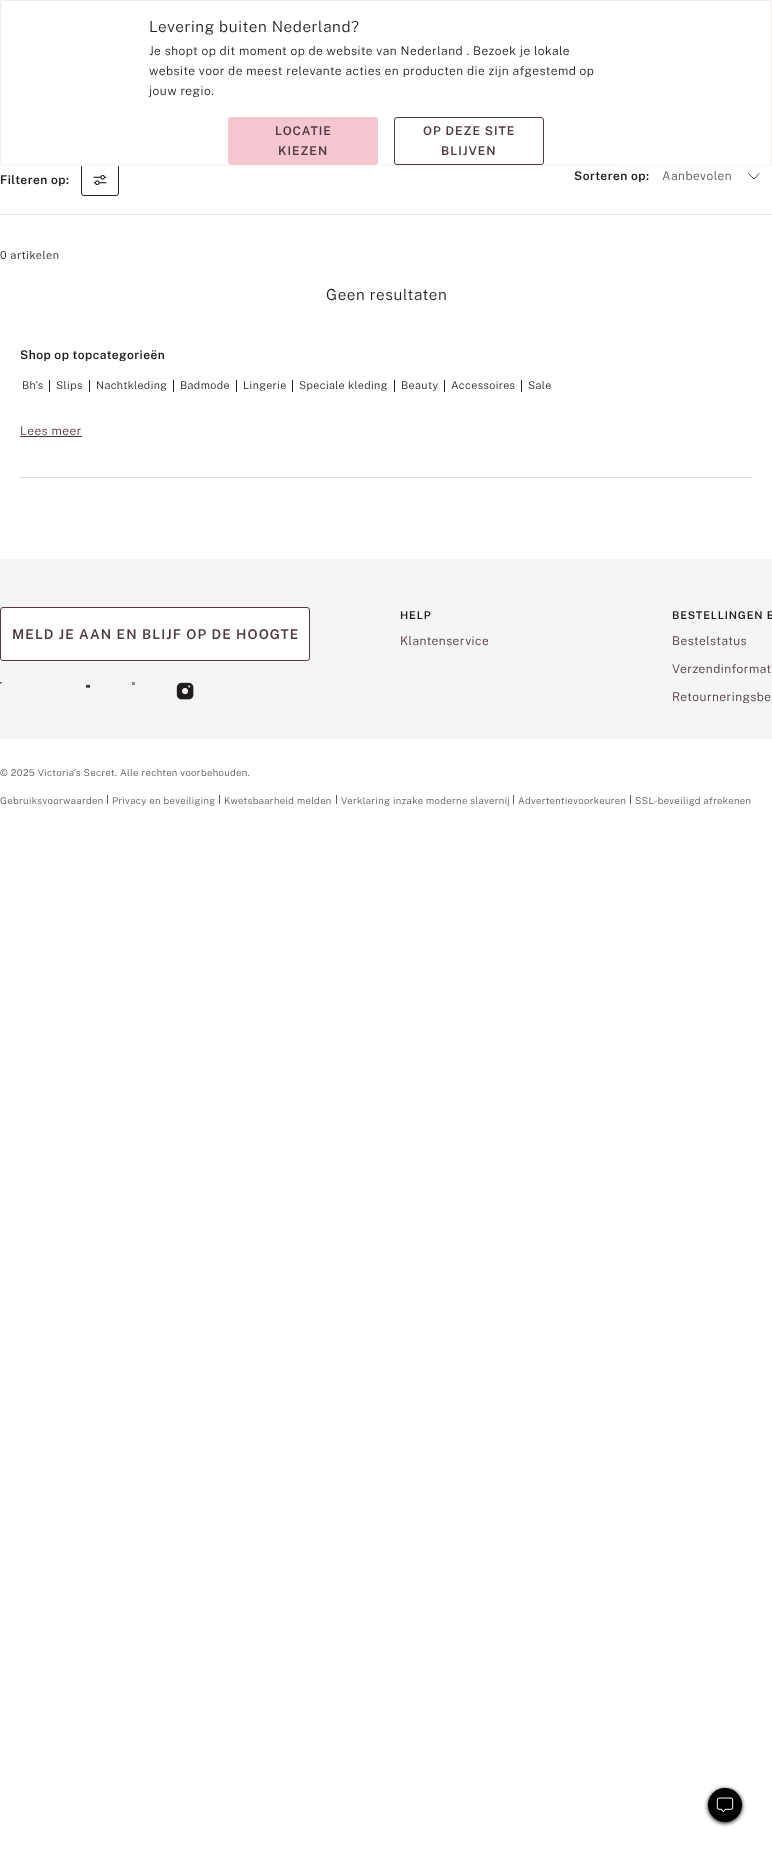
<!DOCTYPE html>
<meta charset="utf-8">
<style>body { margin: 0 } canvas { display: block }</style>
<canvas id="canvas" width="772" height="1852"></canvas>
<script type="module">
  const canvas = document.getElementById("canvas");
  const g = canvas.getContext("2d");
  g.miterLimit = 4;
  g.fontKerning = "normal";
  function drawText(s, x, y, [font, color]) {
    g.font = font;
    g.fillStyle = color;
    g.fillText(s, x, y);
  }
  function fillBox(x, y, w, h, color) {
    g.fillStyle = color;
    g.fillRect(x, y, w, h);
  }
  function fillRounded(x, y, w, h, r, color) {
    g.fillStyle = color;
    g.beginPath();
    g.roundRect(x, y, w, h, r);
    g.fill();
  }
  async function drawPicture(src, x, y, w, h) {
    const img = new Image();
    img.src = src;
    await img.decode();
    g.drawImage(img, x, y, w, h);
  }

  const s1 = ["300 15.25px Public Sans", "#221D1D"];
  const s2 = ["300 12px Public Sans", "#221D1D"];
  const s3 = ["600 12px Public Sans", "#4E3844"];
  const s4 = ["600 12px Public Sans", "#221D1D"];
  const s5 = ["300 12px Public Sans", "#605858"];
  const s6 = ["300 11px Public Sans", "#221D1D"];
  const s7 = ["300 10.75px Public Sans", "#221D1D"];
  const s8 = ["300 12px Public Sans", "#4E3844"];
  const s9 = ["600 13.5px Public Sans", "#4E3844"];
  const s10 = ["600 10.75px Public Sans", "#221D1D"];
  const s11 = ["300 9.5px Public Sans", "#605858"];

  fillBox(0, 0, 772, 1852, "#FFFFFF");
  g.beginPath();
  g.roundRect(81.5, 164.5, 37, 31, 2.5);
  g.strokeStyle = "#221D1D";
  g.stroke();
  fillRounded(0, 0, 772, 166, 2, "#FFFFFF");
  g.beginPath();
  g.moveTo(771, 165);
  g.lineTo(770, 165.5);
  g.lineTo(1, 165);
  g.strokeStyle = "#F5F5F6";
  g.stroke();
  g.beginPath();
  g.moveTo(1, 165);
  g.lineTo(0.5, 164);
  g.lineTo(0.5, 2);
  g.lineTo(1, 1);
  g.lineTo(2, 0.5);
  g.lineTo(770, 0.5);
  g.lineTo(771, 1);
  g.lineTo(771.5, 2);
  g.lineTo(771.5, 164);
  g.lineTo(771, 165);
  g.strokeStyle = "#EFECEA";
  g.stroke();
  g.letterSpacing = "0.6px";
  drawText("Levering buiten Nederland?", 149, 32, s1);
  g.letterSpacing = "0.48px";
  drawText("Je shopt op dit moment op de website van Nederland . Bezoek je lokale", 149, 55, s2);
  drawText("website voor de meest relevante acties en producten die zijn afgestemd op", 149, 75, s2);
  drawText("jouw regio.", 149, 95, s2);
  g.fillStyle = "#F4C6CF";
  g.beginPath();
  g.roundRect(228.5, 117.5, 149, 47, 2.5);
  g.fill();
  g.strokeStyle = "#F4C6CF";
  g.stroke();
  g.letterSpacing = "1px";
  drawText("LOCATIE", 275, 135, s3);
  drawText("KIEZEN", 278, 155, s3);
  g.fillStyle = "#FFFFFF";
  g.beginPath();
  g.roundRect(394.5, 117.5, 149, 47, 2.5);
  g.fill();
  g.strokeStyle = "#4E3844";
  g.stroke();
  drawText("OP DEZE SITE", 423, 135, s3);
  drawText("BLIJVEN", 441, 155, s3);
  fillBox(0, 214, 772, 1, "#E8E3DF");
  g.letterSpacing = "0.48px";
  drawText("Filteren op:", 0, 184, s4);
  await drawPicture("pic1.png", 93, 175, 14, 11);
  drawText("Sorteren op:", 574, 180, s4);
  drawText("Aanbevolen", 662, 180, s5);
  g.beginPath();
  g.moveTo(759, 173.5);
  g.lineTo(754, 179);
  g.lineTo(748.5, 173.5);
  g.strokeStyle = "#221D1D";
  g.lineWidth = 0.8;
  g.lineCap = "round";
  g.stroke();
  g.letterSpacing = "0.5px";
  drawText("0 artikelen", 0, 259, s6);
  g.letterSpacing = "0.6px";
  drawText("Geen resultaten", 326, 300, s1);
  g.letterSpacing = "0.48px";
  drawText("Shop op topcategorieën", 20, 359, s4);
  g.letterSpacing = "0.4px";
  drawText("Bh's", 22, 389, s7);
  fillBox(49, 380, 1, 12, "#221D1D");
  drawText("Slips", 56, 389, s7);
  fillBox(89, 380, 1, 12, "#221D1D");
  drawText("Nachtkleding", 96, 389, s7);
  fillBox(173, 380, 1, 12, "#221D1D");
  drawText("Badmode", 180, 389, s7);
  fillBox(236, 380, 1, 12, "#221D1D");
  drawText("Lingerie", 243, 389, s7);
  fillBox(292, 380, 1, 12, "#221D1D");
  drawText("Speciale kleding", 299, 389, s7);
  fillBox(394, 380, 1, 12, "#221D1D");
  drawText("Beauty", 401, 389, s7);
  fillBox(444, 380, 1, 12, "#221D1D");
  drawText("Accessoires", 451, 389, s7);
  fillBox(521, 380, 1, 12, "#221D1D");
  drawText("Sale", 528, 389, s7);
  g.letterSpacing = "0.48px";
  drawText("Lees meer", 20, 435, s8);
  fillBox(20, 436, 62, 1, "#4E3844");
  fillBox(20, 477, 732, 1, "#E0DAD5");
  g.fillStyle = "#000000";
  g.filter = "blur(2px)";
  g.beginPath();
  g.roundRect(708, 1789, 34, 34, 17);
  g.fill();
  g.filter = "none";
  g.beginPath();
  g.arc(725, 1805, 17, 0, Math.PI * 2);
  g.fill();
  await drawPicture("pic2.png", 716, 1797, 18, 16);
  fillBox(0, 559, 772, 180, "#F5F5F6");
  g.fillStyle = "#FFFFFF";
  g.beginPath();
  g.roundRect(0.5, 607.5, 309, 53, 2.5);
  g.fill();
  g.strokeStyle = "#4E3844";
  g.lineWidth = 1;
  g.stroke();
  g.letterSpacing = "1.1px";
  drawText("MELD JE AAN EN BLIJF OP DE HOOGTE", 12, 639, s9);
  await drawPicture("pic3.png", 0, 682, 2, 2);
  await drawPicture("pic4.png", 86, 684, 4, 4);
  fillBox(132, 682, 3, 3, "#908E8E");
  await drawPicture("pic5.png", 176, 682, 18, 18);
  g.letterSpacing = "0.8px";
  drawText("HELP", 400, 619, s10);
  g.letterSpacing = "0.48px";
  drawText("Klantenservice", 400, 645, s8);
  g.letterSpacing = "0.8px";
  drawText("BESTELLINGEN E", 672, 619, s10);
  g.letterSpacing = "0.48px";
  drawText("Bestelstatus", 672, 645, s8);
  drawText("Verzendinformat", 672, 673, s8);
  drawText("Retourneringsbe", 672, 701, s8);
  g.letterSpacing = "0.38px";
  drawText("© 2025 Victoria's Secret. Alle rechten voorbehouden.", 0, 776, s11);
  drawText("Gebruiksvoorwaarden", 0, 804, s11);
  fillBox(107, 795, 1, 9, "#605858");
  drawText("Privacy en beveiliging", 112, 804, s11);
  fillBox(219, 795, 1, 9, "#605858");
  drawText("Kwetsbaarheid melden", 224, 804, s11);
  fillBox(336, 795, 1, 9, "#605858");
  drawText("Verklaring inzake moderne slavernij", 341, 804, s11);
  fillBox(513, 795, 1, 9, "#605858");
  drawText("Advertentievoorkeuren", 518, 804, s11);
  fillBox(630, 795, 1, 9, "#605858");
  drawText("SSL-beveiligd afrekenen", 635, 804, s11);
</script>
